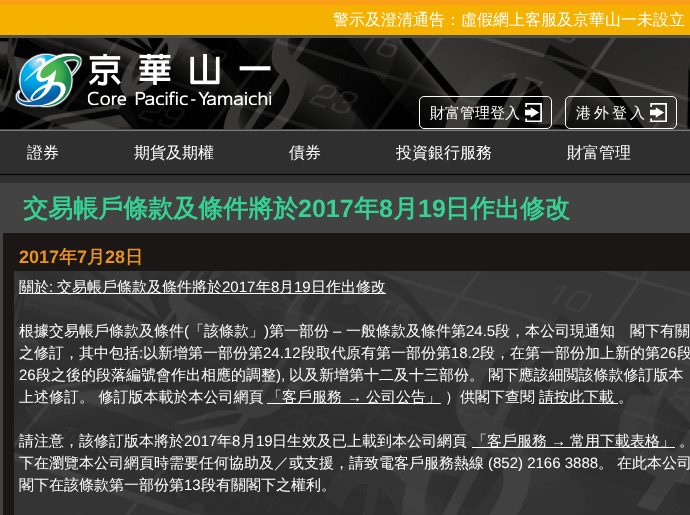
<!DOCTYPE html>
<meta charset="utf-8">
<style>body { margin: 0 } canvas { display: block }</style>
<canvas id="canvas" width="690" height="515"></canvas>
<script type="module">
  const canvas = document.getElementById("canvas");
  const g = canvas.getContext("2d");
  g.miterLimit = 4;
  g.fontKerning = "normal";
  function drawText(s, x, y, [font, color]) {
    g.font = font;
    g.fillStyle = color;
    g.fillText(s, x, y);
  }
  function fillBox(x, y, w, h, color) {
    g.fillStyle = color;
    g.fillRect(x, y, w, h);
  }
  async function drawPicture(src, x, y, w, h) {
    const img = new Image();
    img.src = src;
    await img.decode();
    g.drawImage(img, x, y, w, h);
  }

  const s1 = ["500 16px WenQuanYi Zen Hei", "#FFFFFF"];
  const s2 = ["500 15px WenQuanYi Zen Hei", "#FFFFFF"];
  const s3 = ["bold 25px WenQuanYi Zen Hei", "#36D293"];
  const s4 = ["bold 25px Liberation Sans", "#36D293"];
  const s5 = ["bold 18px Liberation Sans", "#E9931A"];
  const s6 = ["bold 18px WenQuanYi Zen Hei", "#E9931A"];
  const s7 = ["15px Liberation Sans", "#FFFFFF"];

  fillBox(0, 0, 690, 515, "#FFFFFF");
  fillBox(0, 5, 690, 30, "#F5B100");
  fillBox(0, 0, 690, 5, "#FB9F19");
  drawText("警示及澄清通告：虛假網上客服及京華山一未設立", 333, 25, s1);
  await drawPicture("pic1.png", 0, 35, 690, 95);
  await drawPicture("pic2.png", 15, 53, 257, 55);
  await drawPicture("pic3.png", 525, 103, 17, 19);
  g.beginPath();
  g.roundRect(419.5, 96.5, 132, 32, 4.5);
  g.strokeStyle = "#FFFFFF";
  g.stroke();
  drawText("財富管理登入", 430, 118, s2);
  await drawPicture("pic4.png", 650, 103, 17, 19);
  g.beginPath();
  g.roundRect(565.5, 96.5, 111, 32, 4.5);
  g.stroke();
  g.letterSpacing = "3px";
  drawText("港外登入", 576, 118, s2);
  fillBox(0, 131, 690, 43, "#2F2F2F");
  fillBox(0, 130, 690, 1, "#797B7E");
  g.letterSpacing = "0px";
  drawText("證券", 27, 158, s1);
  drawText("期貨及期權", 134, 158, s1);
  drawText("債券", 289, 158, s1);
  drawText("投資銀行服務", 396, 158, s1);
  drawText("財富管理", 567, 158, s1);
  fillBox(0, 174, 690, 1, "#000000");
  fillBox(0, 175, 690, 8, "#2F2F2F");
  fillBox(0, 183, 690, 332, "#434343");
  drawText("交易帳戶條款及條件將於", 23, 217, s3);
  drawText("2017", 298, 217, s4);
  drawText("年", 354, 217, s3);
  drawText("8", 379, 217, s4);
  drawText("月", 393, 217, s3);
  drawText("19", 418, 217, s4);
  drawText("日作出修改", 445, 217, s3);
  fillBox(3, 233, 687, 282, "#1B1716");
  drawText("2017", 19, 263, s5);
  drawText("年", 59, 263, s6);
  drawText("7", 77, 263, s5);
  drawText("月", 87, 263, s6);
  drawText("28", 105, 263, s5);
  drawText("日", 125, 263, s6);
  await drawPicture("pic5.png", 14, 271, 676, 244);
  fillBox(19, 293, 367, 1, "#FFFFFF");
  drawText("關於", 19, 292, s2);
  drawText(":", 49, 292, s7);
  drawText("交易帳戶條款及條件將於", 57, 292, s2);
  drawText("2017", 222, 292, s7);
  drawText("年", 256, 292, s2);
  drawText("8", 271, 292, s7);
  drawText("月", 279, 292, s2);
  drawText("19", 294, 292, s7);
  drawText("日作出修改", 311, 292, s2);
  drawText("根據交易帳戶條款及條件", 19, 336, s2);
  drawText("(", 184, 336, s7);
  drawText("「該條款」", 189, 336, s2);
  drawText(")", 264, 336, s7);
  drawText("第一部份", 269, 336, s2);
  drawText("–", 333, 336, s7);
  drawText("一般條款及條件第", 346, 336, s2);
  drawText("24.5", 466, 336, s7);
  drawText("段，本公司現通知　閣下有關", 495, 336, s2);
  drawText("之修訂，其中包括", 19, 358, s2);
  drawText(":", 139, 358, s7);
  drawText("以新增第一部份第", 143, 358, s2);
  drawText("24.12", 263, 358, s7);
  drawText("段取代原有第一部份第", 301, 358, s2);
  drawText("18.2", 451, 358, s7);
  drawText("段，在第一部份加上新的第", 480, 358, s2);
  drawText("26", 660, 358, s7);
  drawText("段", 677, 358, s2);
  drawText("26", 19, 380, s7);
  drawText("段之後的段落編號會作出相應的調整", 36, 380, s2);
  drawText("),", 276, 380, s7);
  drawText("以及新增第十二及十三部份。 閣下應該細閲該條款修訂版本", 289, 380, s2);
  drawText("上述修訂。 修訂版本載於本公司網頁", 19, 402, s2);
  fillBox(267, 403, 174, 1, "#FFFFFF");
  drawText("「客戶服務", 267, 402, s2);
  drawText("→", 347, 402, s7);
  drawText("公司公告」", 366, 402, s2);
  drawText("）供閣下查閱", 445, 402, s2);
  fillBox(539, 403, 79, 1, "#FFFFFF");
  drawText("請按此下載", 539, 402, s2);
  drawText("。", 618, 402, s2);
  drawText("請注意，該修訂版本將於", 19, 446, s2);
  drawText("2017", 184, 446, s7);
  drawText("年", 217, 446, s2);
  drawText("8", 232, 446, s7);
  drawText("月", 241, 446, s2);
  drawText("19", 256, 446, s7);
  drawText("日生效及已上載到本公司網頁", 272, 446, s2);
  fillBox(472, 447, 203, 1, "#FFFFFF");
  drawText("「客戶服務", 472, 446, s2);
  drawText("→", 551, 446, s7);
  drawText("常用下載表格」", 570, 446, s2);
  drawText("。", 679, 446, s2);
  drawText("下在瀏覽本公司網頁時需要任何協助及／或支援，請致電客戶服務熱線", 19, 468, s2);
  drawText("(852) 2166 3888", 488, 468, s7);
  drawText("。", 598, 468, s2);
  drawText("在此本公司", 617, 468, s2);
  drawText("閣下在該條款第一部份第", 19, 490, s2);
  drawText("13", 184, 490, s7);
  drawText("段有關閣下之權利。", 201, 490, s2);
</script>
